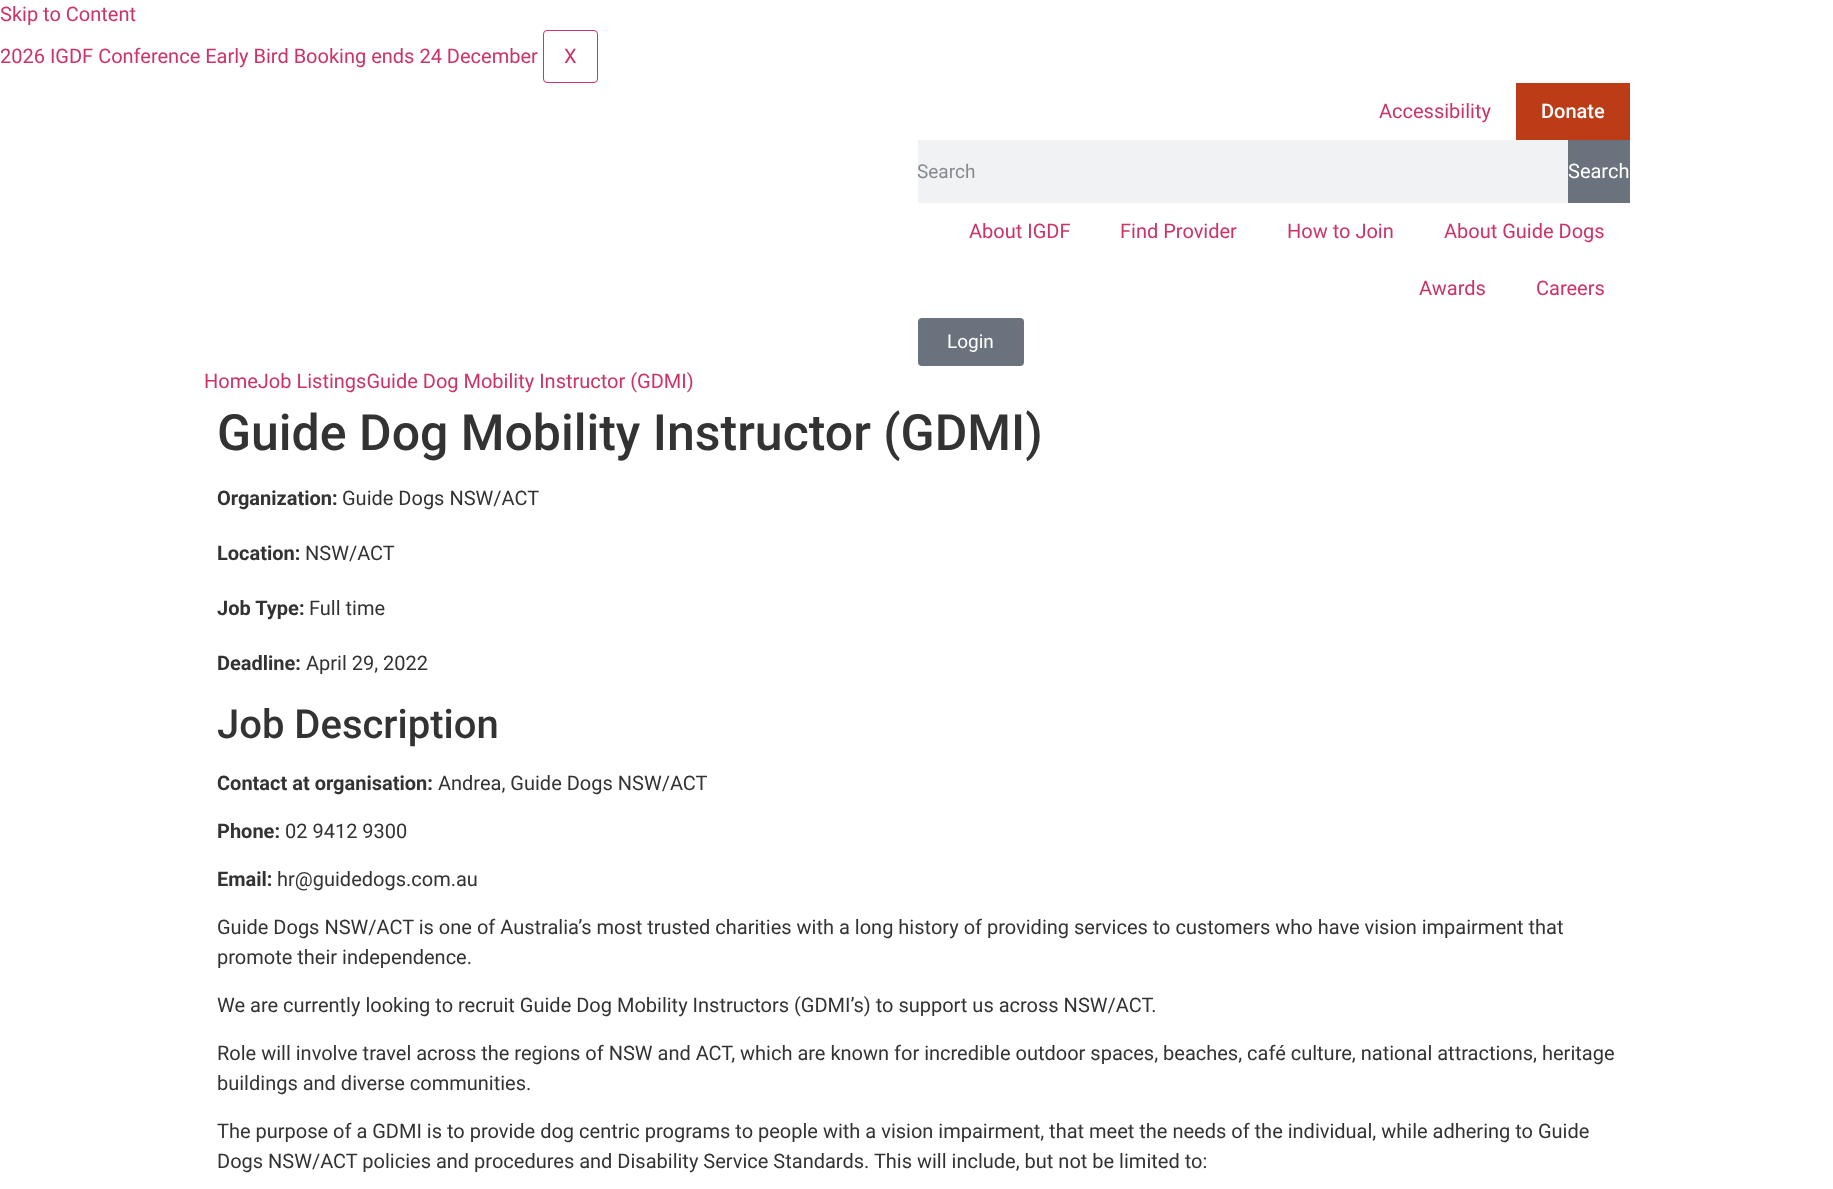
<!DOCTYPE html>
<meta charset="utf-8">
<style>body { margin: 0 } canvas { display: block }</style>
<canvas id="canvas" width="1833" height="1189"></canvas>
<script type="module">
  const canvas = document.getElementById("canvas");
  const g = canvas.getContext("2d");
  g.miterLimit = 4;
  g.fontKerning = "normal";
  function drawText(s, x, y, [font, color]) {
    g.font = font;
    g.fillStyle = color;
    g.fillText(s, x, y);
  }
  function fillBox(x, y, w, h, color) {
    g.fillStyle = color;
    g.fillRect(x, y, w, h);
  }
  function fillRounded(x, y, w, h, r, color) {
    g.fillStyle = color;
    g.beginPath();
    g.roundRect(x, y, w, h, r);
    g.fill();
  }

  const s1 = ["20px Roboto", "#CC3366"];
  const s2 = ["500 20px Roboto", "#FFFFFF"];
  const s3 = ["19px Roboto", "#868A8E"];
  const s4 = ["20px Roboto", "#FFFFFF"];
  const s5 = ["19px Roboto", "#FFFFFF"];
  const s6 = ["500 50px Roboto", "#333333"];
  const s7 = ["bold 20px Roboto", "#333333"];
  const s8 = ["20px Roboto", "#333333"];
  const s9 = ["500 40px Roboto", "#333333"];

  fillBox(0, 0, 1833, 1189, "#FFFFFF");
  drawText("Skip to Content", 0, 21, s1);
  drawText("2026 IGDF Conference Early Bird Booking ends 24 December", 0, 63, s1);
  g.beginPath();
  g.roundRect(543.5, 30.5, 54, 52, 3.5);
  g.strokeStyle = "#CC3366";
  g.stroke();
  drawText("X", 564, 63, s1);
  drawText("Accessibility", 1379, 118, s1);
  fillBox(1516, 83, 114, 57, "#BD3C18");
  drawText("Donate", 1541, 118, s2);
  fillBox(918, 140, 650, 63, "#F1F2F3");
  drawText("Search", 917, 178, s3);
  fillBox(1568, 140, 62, 63, "#69727D");
  drawText("Search", 1568, 178, s4);
  drawText("About IGDF", 969, 238, s1);
  drawText("Find Provider", 1120, 238, s1);
  drawText("How to Join", 1287, 238, s1);
  drawText("About Guide Dogs", 1444, 238, s1);
  drawText("Awards", 1419, 295, s1);
  drawText("Careers", 1536, 295, s1);
  fillRounded(918, 318, 106, 48, 4, "#69727D");
  drawText("Login", 947, 348, s5);
  drawText("HomeJob ListingsGuide Dog Mobility Instructor (GDMI)", 204, 388, s1);
  drawText("Guide Dog Mobility Instructor (GDMI)", 217, 450, s6);
  drawText("Organization:", 217, 505, s7);
  drawText("Guide Dogs NSW/ACT", 342, 505, s8);
  drawText("Location:", 217, 560, s7);
  drawText("NSW/ACT", 305, 560, s8);
  drawText("Job Type:", 217, 615, s7);
  drawText("Full time", 309, 615, s8);
  drawText("Deadline:", 217, 670, s7);
  drawText("April 29, 2022", 306, 670, s8);
  drawText("Job Description", 217, 738, s9);
  drawText("Contact at organisation:", 217, 790, s7);
  drawText("Andrea, Guide Dogs NSW/ACT", 438, 790, s8);
  drawText("Phone:", 217, 838, s7);
  drawText("02 9412 9300", 285, 838, s8);
  drawText("Email:", 217, 886, s7);
  drawText("hr@guidedogs.com.au", 277, 886, s8);
  drawText("Guide Dogs NSW/ACT is one of Australia’s most trusted charities with a long history of providing services to customers who have vision impairment that", 217, 934, s8);
  drawText("promote their independence.", 217, 964, s8);
  drawText("We are currently looking to recruit Guide Dog Mobility Instructors (GDMI’s) to support us across NSW/ACT.", 217, 1012, s8);
  drawText("Role will involve travel across the regions of NSW and ACT, which are known for incredible outdoor spaces, beaches, café culture, national attractions, heritage", 217, 1060, s8);
  drawText("buildings and diverse communities.", 217, 1090, s8);
  drawText("The purpose of a GDMI is to provide dog centric programs to people with a vision impairment, that meet the needs of the individual, while adhering to Guide", 217, 1138, s8);
  drawText("Dogs NSW/ACT policies and procedures and Disability Service Standards. This will include, but not be limited to:", 217, 1168, s8);
</script>
